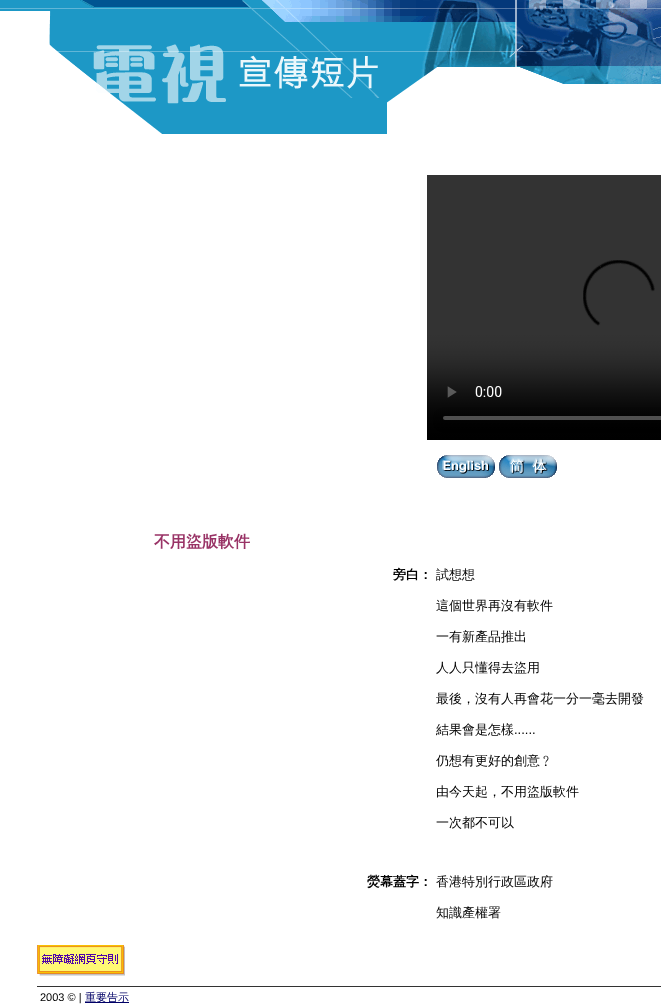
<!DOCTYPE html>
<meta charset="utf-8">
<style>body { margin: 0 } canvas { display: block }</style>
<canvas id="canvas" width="661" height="1006"></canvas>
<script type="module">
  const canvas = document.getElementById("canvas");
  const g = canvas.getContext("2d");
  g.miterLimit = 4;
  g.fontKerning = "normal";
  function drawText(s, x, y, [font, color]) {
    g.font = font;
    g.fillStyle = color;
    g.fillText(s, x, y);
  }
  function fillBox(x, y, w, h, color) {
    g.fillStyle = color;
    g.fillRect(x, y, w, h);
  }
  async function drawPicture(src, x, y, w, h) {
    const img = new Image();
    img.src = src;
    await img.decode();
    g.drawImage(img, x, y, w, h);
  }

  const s1 = ["bold 16px WenQuanYi Zen Hei", "#993366"];
  const s2 = ["bold 13px WenQuanYi Zen Hei", "#000000"];
  const s3 = ["500 13px WenQuanYi Zen Hei", "#000000"];
  const s4 = ["13px Liberation Sans", "#000000"];
  const s5 = ["11px Liberation Sans", "#000000"];
  const s6 = ["500 11px WenQuanYi Zen Hei", "#000066"];

  fillBox(0, 0, 661, 1006, "#FFFFFF");
  await drawPicture("pic1.png", 0, 0, 661, 134);
  await drawPicture("pic2.png", 427, 175, 234, 265);
  await drawPicture("pic3.png", 437, 455, 58, 23);
  await drawPicture("pic4.png", 499, 455, 58, 23);
  drawText("不用盜版軟件", 154, 547, s1);
  drawText("旁白：", 393, 579, s2);
  drawText("試想想", 436, 579, s3);
  drawText("這個世界再沒有軟件", 436, 610, s3);
  drawText("一有新產品推出", 436, 641, s3);
  drawText("人人只懂得去盜用", 436, 672, s3);
  drawText("最後，沒有人再會花一分一毫去開發", 436, 703, s3);
  drawText("結果會是怎樣", 436, 734, s3);
  drawText("......", 514, 734, s4);
  drawText("仍想有更好的創意﹖", 436, 765, s3);
  drawText("由今天起，不用盜版軟件", 436, 796, s3);
  drawText("一次都不可以", 436, 827, s3);
  drawText("熒幕蓋字：", 367, 886, s2);
  drawText("香港特別行政區政府", 436, 886, s3);
  drawText("知識產權署", 436, 917, s3);
  await drawPicture("pic5.png", 37, 945, 88, 31);
  fillBox(37, 986, 624, 1, "#333333");
  drawText("2003 © |", 40, 1001, s5);
  fillBox(85, 1002, 44, 1, "#000066");
  drawText("重要告示", 85, 1001, s6);
</script>
